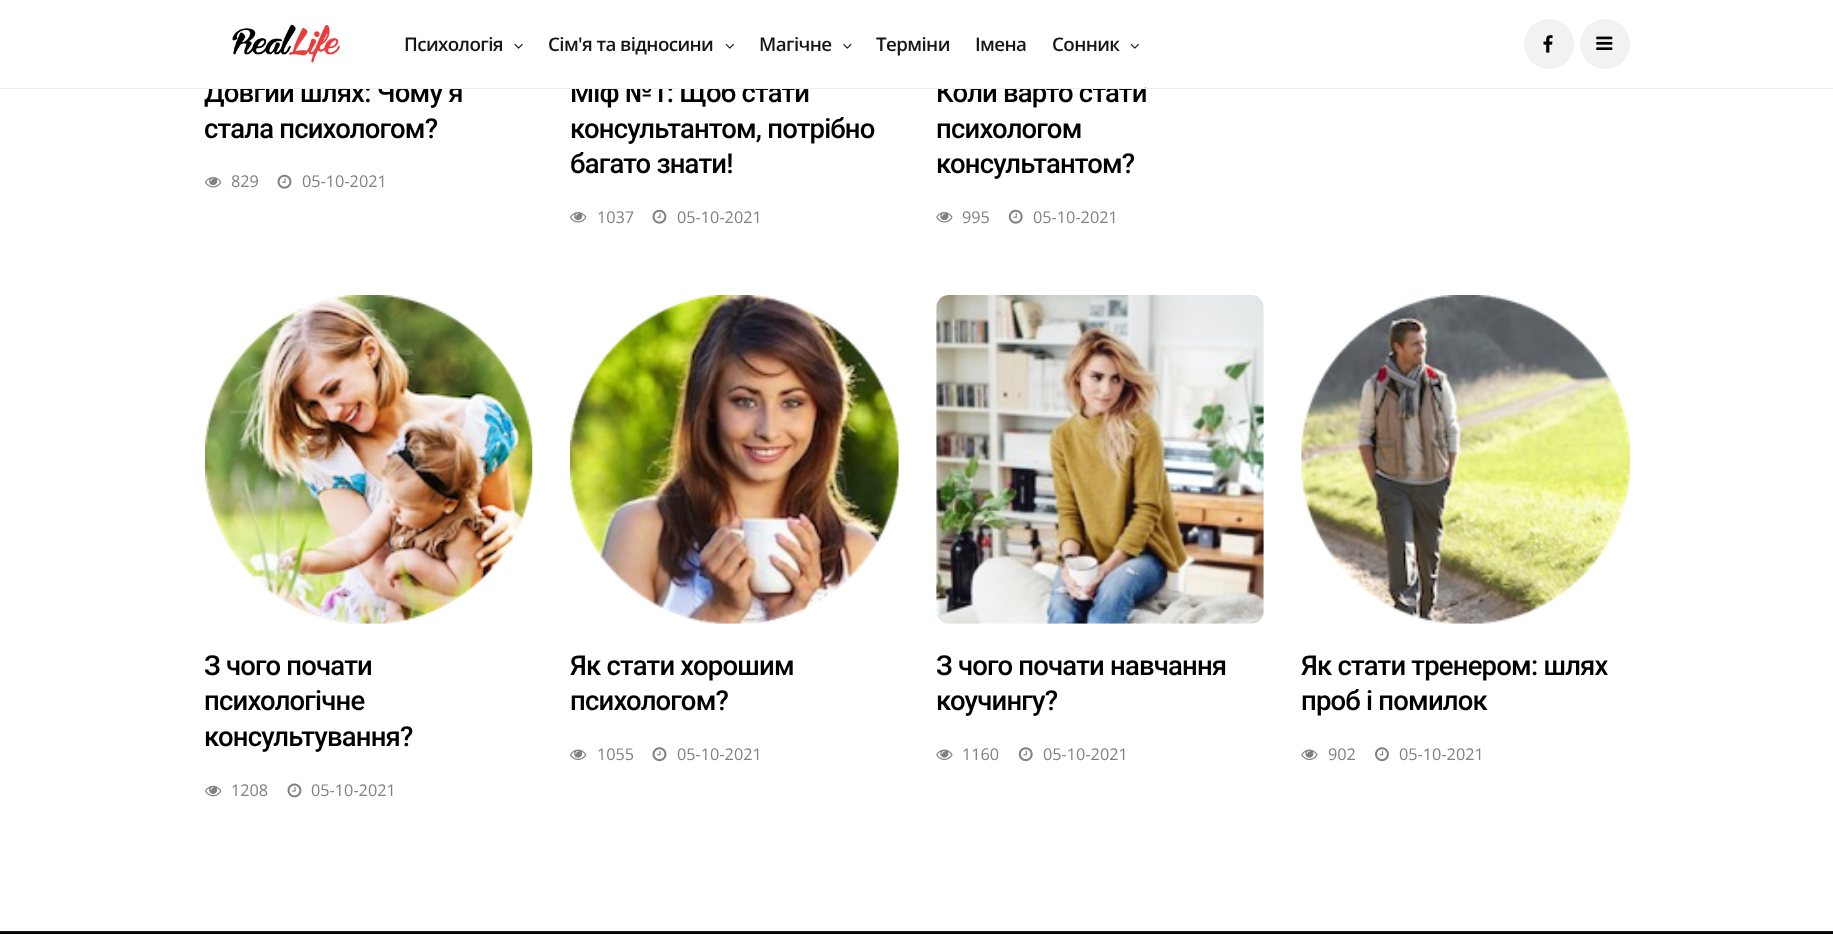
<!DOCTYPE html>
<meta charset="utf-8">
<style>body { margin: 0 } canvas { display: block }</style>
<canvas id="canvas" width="1833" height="934"></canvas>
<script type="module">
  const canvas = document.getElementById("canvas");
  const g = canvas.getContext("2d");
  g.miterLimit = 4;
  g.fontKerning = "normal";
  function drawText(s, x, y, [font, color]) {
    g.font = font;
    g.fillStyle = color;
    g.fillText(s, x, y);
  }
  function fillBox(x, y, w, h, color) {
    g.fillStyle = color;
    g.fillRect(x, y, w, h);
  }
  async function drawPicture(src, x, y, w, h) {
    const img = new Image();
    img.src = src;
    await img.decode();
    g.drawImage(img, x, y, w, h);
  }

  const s1 = ["500 27.5px Roboto", "#000000"];
  const s2 = ["600 18.75px Open Sans", "#161616"];
  const s3 = ["16.25px Open Sans", "#818181"];

  fillBox(0, 0, 1833, 934, "#FFFFFF");
  g.letterSpacing = "-0.8px";
  drawText("Довгий шлях: Чому я", 204, 102, s1);
  drawText("Міф №1: Щоб стати", 570, 102, s1);
  drawText("Коли варто стати", 936, 102, s1);
  fillBox(209, 81, 936, 7, "#FFFFFF");
  fillBox(0, 88, 1833, 1, "#EEEEEE");
  await drawPicture("pic1.png", 232, 25, 108, 38);
  g.letterSpacing = "-0.6px";
  drawText("Психологія", 404, 51, s2);
  await drawPicture("pic2.png", 514, 43, 9, 6);
  drawText("Сім'я та відносини", 548, 51, s2);
  await drawPicture("pic3.png", 725, 43, 9, 6);
  drawText("Магічне", 759, 51, s2);
  await drawPicture("pic4.png", 843, 43, 9, 6);
  drawText("Терміни", 876, 51, s2);
  drawText("Імена", 975, 51, s2);
  drawText("Сонник", 1052, 51, s2);
  await drawPicture("pic3.png", 1130, 43, 9, 6);
  g.fillStyle = "#F2F2F2";
  g.beginPath();
  g.arc(1549, 44, 25, 0, Math.PI * 2);
  g.fill();
  await drawPicture("pic5.png", 1543, 35, 10, 18);
  g.beginPath();
  g.arc(1605, 44, 25, 0, Math.PI * 2);
  g.fill();
  await drawPicture("pic6.png", 1596, 36, 17, 14);
  g.letterSpacing = "-0.8px";
  drawText("стала психологом?", 204, 138, s1);
  await drawPicture("pic7.png", 205, 177, 17, 11);
  g.letterSpacing = "0px";
  drawText("829", 231, 187, s3);
  await drawPicture("pic8.png", 277, 174, 15, 15);
  drawText("05-10-2021", 302, 187, s3);
  g.letterSpacing = "-0.8px";
  drawText("консультантом, потрібно", 570, 138, s1);
  drawText("багато знати!", 570, 173, s1);
  await drawPicture("pic7.png", 570, 212, 17, 11);
  g.letterSpacing = "0px";
  drawText("1037", 597, 223, s3);
  await drawPicture("pic8.png", 652, 209, 15, 15);
  drawText("05-10-2021", 677, 223, s3);
  g.letterSpacing = "-0.8px";
  drawText("психологом", 936, 138, s1);
  drawText("консультантом?", 936, 173, s1);
  await drawPicture("pic9.png", 936, 212, 17, 11);
  g.letterSpacing = "0px";
  drawText("995", 962, 223, s3);
  await drawPicture("pic10.png", 1008, 209, 15, 15);
  drawText("05-10-2021", 1033, 223, s3);
  await drawPicture("pic11.png", 205, 295, 328, 329);
  g.letterSpacing = "-0.8px";
  drawText("З чого почати", 204, 675, s1);
  drawText("психологічне", 204, 710, s1);
  drawText("консультування?", 204, 746, s1);
  await drawPicture("pic12.png", 205, 785, 17, 12);
  g.letterSpacing = "0px";
  drawText("1208", 231, 796, s3);
  await drawPicture("pic13.png", 287, 783, 15, 15);
  drawText("05-10-2021", 311, 796, s3);
  await drawPicture("pic14.png", 570, 295, 329, 329);
  g.letterSpacing = "-0.8px";
  drawText("Як стати хорошим", 570, 675, s1);
  drawText("психологом?", 570, 710, s1);
  await drawPicture("pic15.png", 570, 749, 17, 11);
  g.letterSpacing = "0px";
  drawText("1055", 597, 760, s3);
  await drawPicture("pic16.png", 652, 747, 15, 15);
  drawText("05-10-2021", 677, 760, s3);
  await drawPicture("pic17.png", 936, 295, 328, 329);
  g.letterSpacing = "-0.8px";
  drawText("З чого почати навчання", 936, 675, s1);
  drawText("коучингу?", 936, 710, s1);
  await drawPicture("pic18.png", 936, 749, 17, 11);
  g.letterSpacing = "0px";
  drawText("1160", 962, 760, s3);
  await drawPicture("pic19.png", 1018, 747, 15, 15);
  drawText("05-10-2021", 1043, 760, s3);
  await drawPicture("pic20.png", 1301, 295, 329, 329);
  g.letterSpacing = "-0.8px";
  drawText("Як стати тренером: шлях", 1301, 675, s1);
  drawText("проб і помилок", 1301, 710, s1);
  await drawPicture("pic18.png", 1301, 749, 17, 11);
  g.letterSpacing = "0px";
  drawText("902", 1328, 760, s3);
  await drawPicture("pic21.png", 1375, 747, 14, 15);
  drawText("05-10-2021", 1399, 760, s3);
  fillBox(0, 932, 1833, 2, "#040404");
  fillBox(0, 931, 1833, 1, "#202020");
</script>
